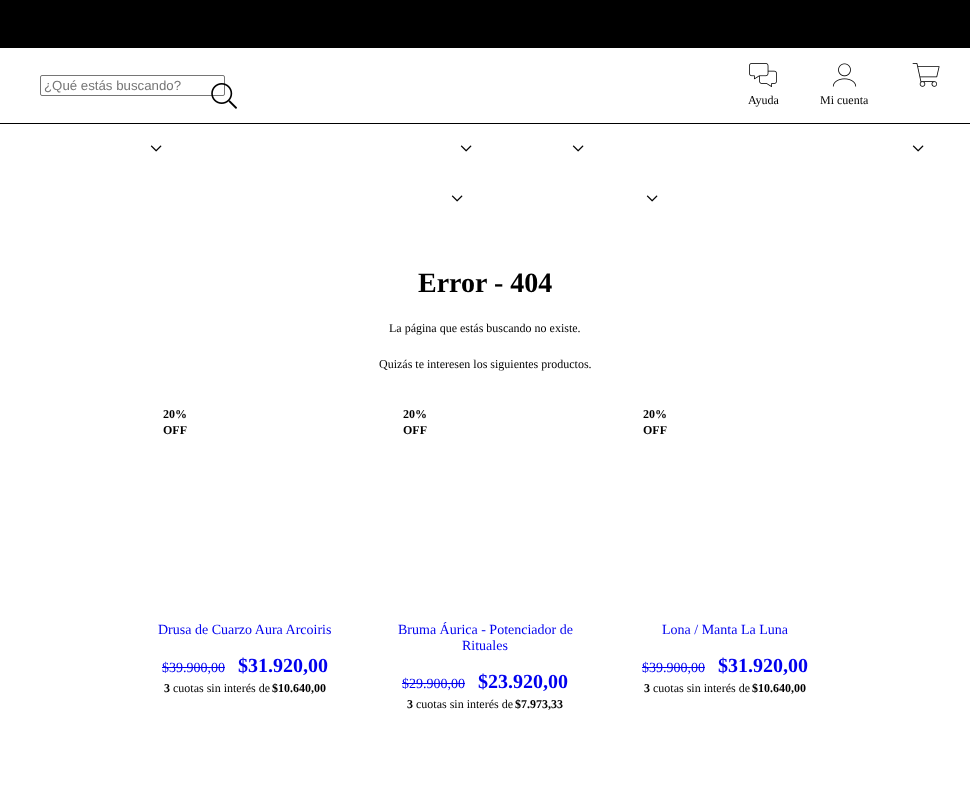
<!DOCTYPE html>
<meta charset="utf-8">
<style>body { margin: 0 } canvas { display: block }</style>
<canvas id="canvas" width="970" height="793"></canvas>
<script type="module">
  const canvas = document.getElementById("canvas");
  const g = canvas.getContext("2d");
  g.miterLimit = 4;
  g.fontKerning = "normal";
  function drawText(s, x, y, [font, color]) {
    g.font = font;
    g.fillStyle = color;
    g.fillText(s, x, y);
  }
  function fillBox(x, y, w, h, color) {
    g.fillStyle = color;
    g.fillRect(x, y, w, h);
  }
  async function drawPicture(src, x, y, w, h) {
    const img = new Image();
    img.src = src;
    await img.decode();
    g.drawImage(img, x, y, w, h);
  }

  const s1 = ["13.25px Liberation Sans", "#757575"];
  const s2 = ["12px Liberation Serif", "#000000"];
  const s3 = ["bold 28px Liberation Serif", "#000000"];
  const s4 = ["bold 12px Liberation Serif", "#000000"];
  const s5 = ["14px Liberation Serif", "#0000EE"];
  const s6 = ["bold 20px Liberation Serif", "#0000EE"];

  fillBox(0, 0, 970, 793, "#FFFFFF");
  fillBox(0, 0, 970, 48, "#000000");
  g.beginPath();
  g.roundRect(40.5, 75.5, 184, 20, 1.5);
  g.strokeStyle = "#767676";
  g.stroke();
  drawText("¿Qué estás buscando?", 44, 90, s1);
  await drawPicture("pic1.png", 211, 83, 26, 26);
  await drawPicture("pic2.png", 912, 63, 28, 24);
  await drawPicture("pic3.png", 749, 63, 28, 24);
  drawText("Ayuda", 748, 104, s2);
  await drawPicture("pic4.png", 832, 63, 25, 24);
  drawText("Mi cuenta", 820, 104, s2);
  fillBox(0, 123, 970, 1, "#000000");
  await drawPicture("pic5.png", 150, 145, 12, 7);
  await drawPicture("pic5.png", 460, 145, 12, 7);
  await drawPicture("pic5.png", 572, 145, 12, 7);
  await drawPicture("pic5.png", 912, 145, 12, 7);
  await drawPicture("pic5.png", 451, 195, 12, 7);
  await drawPicture("pic5.png", 646, 195, 12, 7);
  drawText("Error - 404", 418, 292, s3);
  drawText("La página que estás buscando no existe.", 389, 332, s2);
  drawText("Quizás te interesen los siguientes productos.", 379, 368, s2);
  drawText("20%", 163, 418, s4);
  drawText("OFF", 163, 434, s4);
  drawText("Drusa de Cuarzo Aura Arcoiris", 158, 634, s5);
  drawText("$39.900,00", 162, 672, s5);
  fillBox(162, 667, 63, 1, "#0000EE");
  drawText("$31.920,00", 238, 672, s6);
  drawText("3", 164, 692, s4);
  drawText("cuotas sin interés de", 173, 692, s2);
  drawText("$10.640,00", 272, 692, s4);
  drawText("20%", 403, 418, s4);
  drawText("OFF", 403, 434, s4);
  drawText("Bruma Áurica - Potenciador de", 398, 634, s5);
  drawText("Rituales", 462, 650, s5);
  drawText("$29.900,00", 402, 688, s5);
  fillBox(402, 683, 63, 1, "#0000EE");
  drawText("$23.920,00", 478, 688, s6);
  drawText("3", 407, 708, s4);
  drawText("cuotas sin interés de", 416, 708, s2);
  drawText("$7.973,33", 515, 708, s4);
  drawText("20%", 643, 418, s4);
  drawText("OFF", 643, 434, s4);
  drawText("Lona / Manta La Luna", 662, 634, s5);
  drawText("$39.900,00", 642, 672, s5);
  fillBox(642, 667, 63, 1, "#0000EE");
  drawText("$31.920,00", 718, 672, s6);
  drawText("3", 644, 692, s4);
  drawText("cuotas sin interés de", 653, 692, s2);
  drawText("$10.640,00", 752, 692, s4);
</script>
